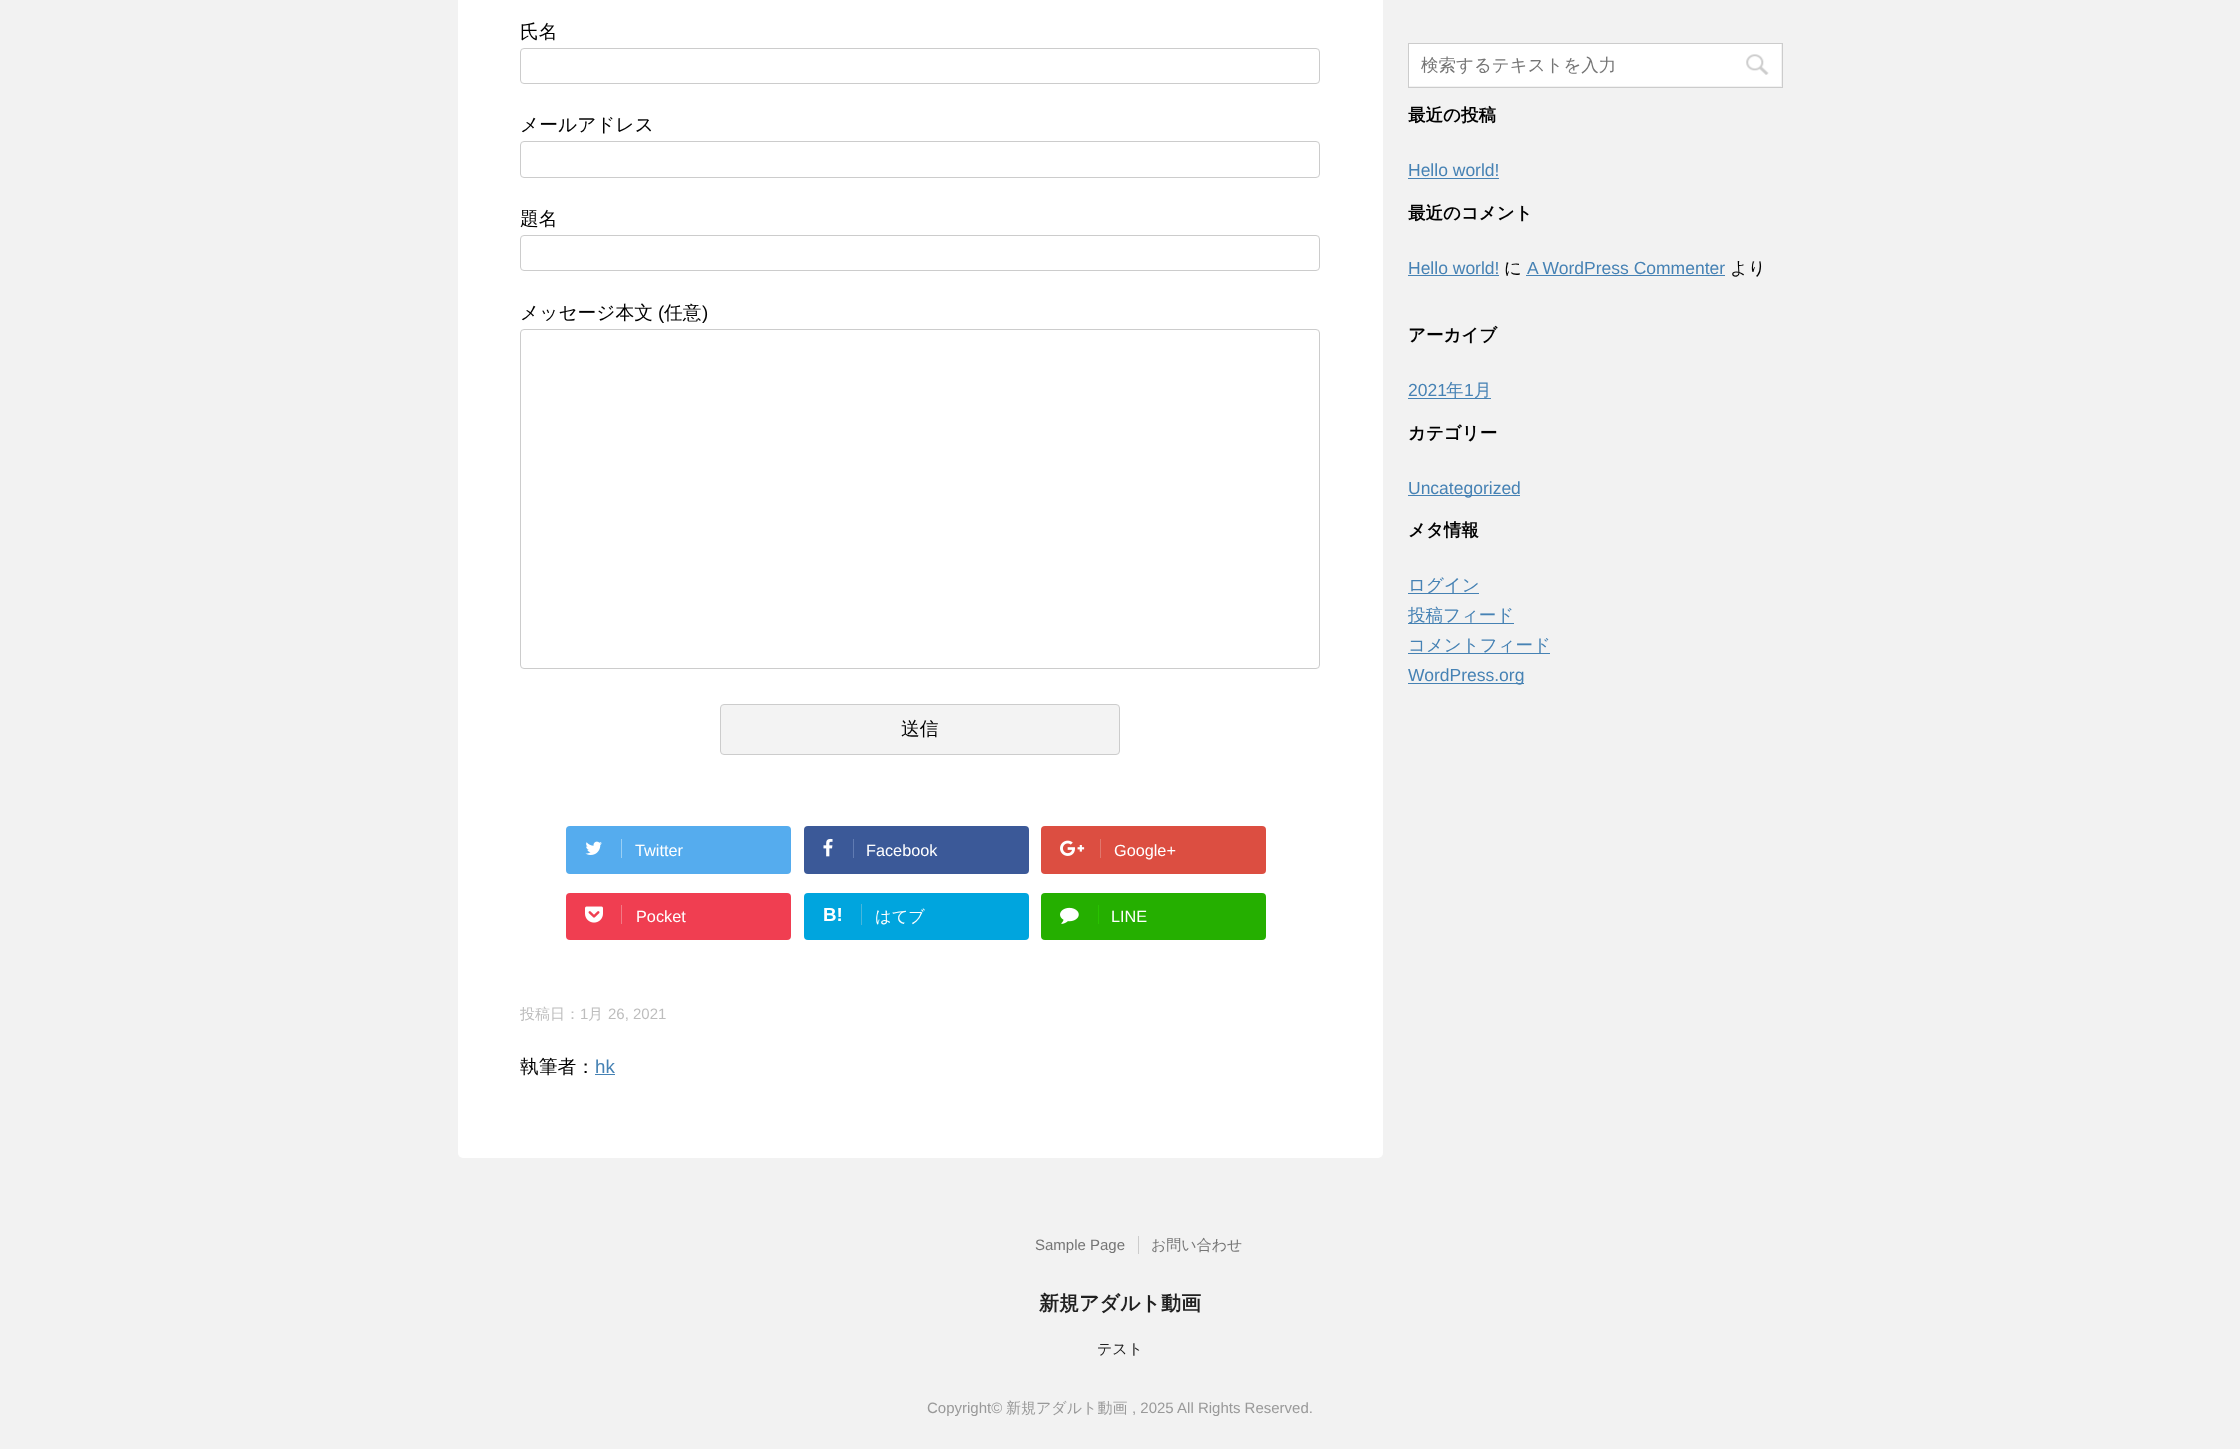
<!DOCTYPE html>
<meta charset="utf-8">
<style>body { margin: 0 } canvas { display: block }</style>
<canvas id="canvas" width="2240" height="1449"></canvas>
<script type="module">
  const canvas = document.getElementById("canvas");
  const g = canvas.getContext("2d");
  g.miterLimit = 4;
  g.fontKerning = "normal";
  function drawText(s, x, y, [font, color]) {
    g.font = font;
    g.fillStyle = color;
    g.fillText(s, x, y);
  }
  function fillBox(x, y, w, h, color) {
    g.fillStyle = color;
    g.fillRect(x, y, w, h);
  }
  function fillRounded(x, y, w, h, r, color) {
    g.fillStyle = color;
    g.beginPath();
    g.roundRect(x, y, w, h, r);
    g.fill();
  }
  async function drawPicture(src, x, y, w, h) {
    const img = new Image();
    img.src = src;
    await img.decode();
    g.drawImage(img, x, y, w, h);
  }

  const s1 = ["500 18.75px WenQuanYi Zen Hei", "#000000"];
  const s2 = ["18.75px Liberation Sans", "#000000"];
  const s3 = ["16.25px Liberation Sans", "#FFFFFF"];
  const s4 = ["bold 18.75px Liberation Sans", "#FFFFFF"];
  const s5 = ["500 16.25px WenQuanYi Zen Hei", "#FFFFFF"];
  const s6 = ["500 15px WenQuanYi Zen Hei", "#BDBDBD"];
  const s7 = ["15px Liberation Sans", "#BDBDBD"];
  const s8 = ["18.75px Liberation Sans", "#4682B4"];
  const s9 = ["500 17.5px WenQuanYi Zen Hei", "#757575"];
  const s10 = ["bold 17.5px WenQuanYi Zen Hei", "#000000"];
  const s11 = ["17.5px Liberation Sans", "#4682B4"];
  const s12 = ["500 17.5px WenQuanYi Zen Hei", "#000000"];
  const s13 = ["500 17.5px WenQuanYi Zen Hei", "#4682B4"];
  const s14 = ["15px Liberation Sans", "#757575"];
  const s15 = ["500 15px WenQuanYi Zen Hei", "#757575"];
  const s16 = ["bold 20px WenQuanYi Zen Hei", "#212121"];
  const s17 = ["500 15px WenQuanYi Zen Hei", "#212121"];
  const s18 = ["15px Liberation Sans", "#999999"];
  const s19 = ["500 15px WenQuanYi Zen Hei", "#999999"];

  fillBox(0, 0, 2240, 1449, "#F2F2F2");
  fillRounded(458, -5, 925, 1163, 5, "#FFFFFF");
  drawText("氏名", 520, 38, s1);
  g.beginPath();
  g.roundRect(520.5, 48.5, 799, 35, 3.5);
  g.strokeStyle = "#CCCCCC";
  g.stroke();
  drawText("メールアドレス", 520, 131, s1);
  g.beginPath();
  g.roundRect(520.5, 141.5, 799, 36, 3.5);
  g.stroke();
  drawText("題名", 520, 225, s1);
  g.beginPath();
  g.roundRect(520.5, 235.5, 799, 35, 3.5);
  g.stroke();
  drawText("メッセージ本文", 520, 319, s1);
  drawText("(", 658, 319, s2);
  drawText("任意", 664, 319, s1);
  drawText(")", 702, 319, s2);
  g.beginPath();
  g.roundRect(520.5, 329.5, 799, 339, 3.5);
  g.stroke();
  g.fillStyle = "#F3F3F3";
  g.beginPath();
  g.roundRect(720.5, 704.5, 399, 50, 3.5);
  g.fill();
  g.stroke();
  drawText("送信", 901, 735, s1);
  fillRounded(566, 826, 225, 48, 4, "#55ACEE");
  fillBox(621, 839, 1, 19, "#9ACFF4");
  await drawPicture("pic1.png", 585, 841, 17, 14);
  drawText("Twitter", 635, 856, s3);
  fillRounded(804, 826, 225, 48, 4, "#3B5998");
  fillBox(853, 839, 1, 19, "#607BB2");
  await drawPicture("pic2.png", 823, 838, 10, 19);
  drawText("Facebook", 866, 856, s3);
  fillRounded(1041, 826, 225, 48, 4, "#DC4E41");
  fillBox(1100, 839, 1, 19, "#E0776D");
  await drawPicture("pic3.png", 1060, 840, 25, 16);
  drawText("Google+", 1114, 856, s3);
  fillRounded(566, 893, 225, 47, 4, "#F03E51");
  fillBox(621, 905, 1, 19, "#F27985");
  await drawPicture("pic4.png", 585, 906, 18, 17);
  drawText("Pocket", 636, 922, s3);
  fillRounded(804, 893, 225, 47, 4, "#00A5DE");
  drawText("B!", 823, 921, s4);
  fillBox(861, 904, 1, 21, "#48B6DB");
  drawText("はてブ", 875, 922, s5);
  fillRounded(1041, 893, 225, 47, 4, "#25AF00");
  fillBox(1098, 905, 1, 19, "#29C200");
  await drawPicture("pic5.png", 1060, 907, 19, 17);
  drawText("LINE", 1111, 922, s3);
  drawText("投稿日：", 520, 1019, s6);
  drawText("1", 580, 1019, s7);
  drawText("月", 588, 1019, s6);
  drawText("26, 2021", 608, 1019, s7);
  drawText("執筆者：", 520, 1073, s1);
  drawText("hk", 595, 1073, s8);
  fillBox(595, 1074, 20, 1, "#4682B4");
  g.strokeRect(1408.5, 43.5, 374, 44);
  fillBox(1409, 44, 372, 42, "#FFFFFF");
  drawText("検索するテキストを入力", 1421, 71, s9);
  await drawPicture("pic6.png", 1746, 54, 23, 21);
  drawText("最近の投稿", 1408, 121, s10);
  drawText("Hello world!", 1408, 176, s11);
  fillBox(1408, 178, 91, 1, "#4682B4");
  drawText("最近のコメント", 1408, 219, s10);
  drawText("Hello world!", 1408, 274, s11);
  fillBox(1408, 275, 91, 1, "#4682B4");
  drawText("に", 1504, 274, s12);
  drawText("A WordPress Commenter", 1527, 274, s11);
  fillBox(1526, 275, 199, 1, "#4682B4");
  drawText("より", 1730, 274, s12);
  drawText("アーカイブ", 1408, 341, s10);
  drawText("2021", 1408, 396, s11);
  fillBox(1408, 398, 83, 1, "#4682B4");
  drawText("年", 1446, 396, s13);
  drawText("1", 1464, 396, s11);
  drawText("月", 1474, 396, s13);
  drawText("カテゴリー", 1408, 439, s10);
  fillBox(1408, 495, 112, 1, "#4682B4");
  drawText("Uncategorized", 1408, 494, s11);
  drawText("メタ情報", 1408, 536, s10);
  fillBox(1408, 593, 71, 1, "#4682B4");
  drawText("ログイン", 1408, 591, s13);
  fillBox(1408, 623, 106, 1, "#4682B4");
  drawText("投稿フィード", 1408, 621, s13);
  fillBox(1408, 653, 142, 1, "#4682B4");
  drawText("コメントフィード", 1408, 651, s13);
  fillBox(1408, 683, 116, 1, "#4682B4");
  drawText("WordPress.org", 1408, 681, s11);
  drawText("Sample Page", 1035, 1250, s14);
  fillBox(1138, 1236, 1, 18, "#CCCCCC");
  drawText("お問い合わせ", 1151, 1250, s15);
  drawText("新規アダルト動画", 1039, 1310, s16);
  drawText("テスト", 1097, 1354, s17);
  drawText("Copyright©", 927, 1413, s18);
  drawText("新規アダルト動画", 1006, 1413, s19);
  drawText(", 2025 All Rights Reserved.", 1132, 1413, s18);
</script>
